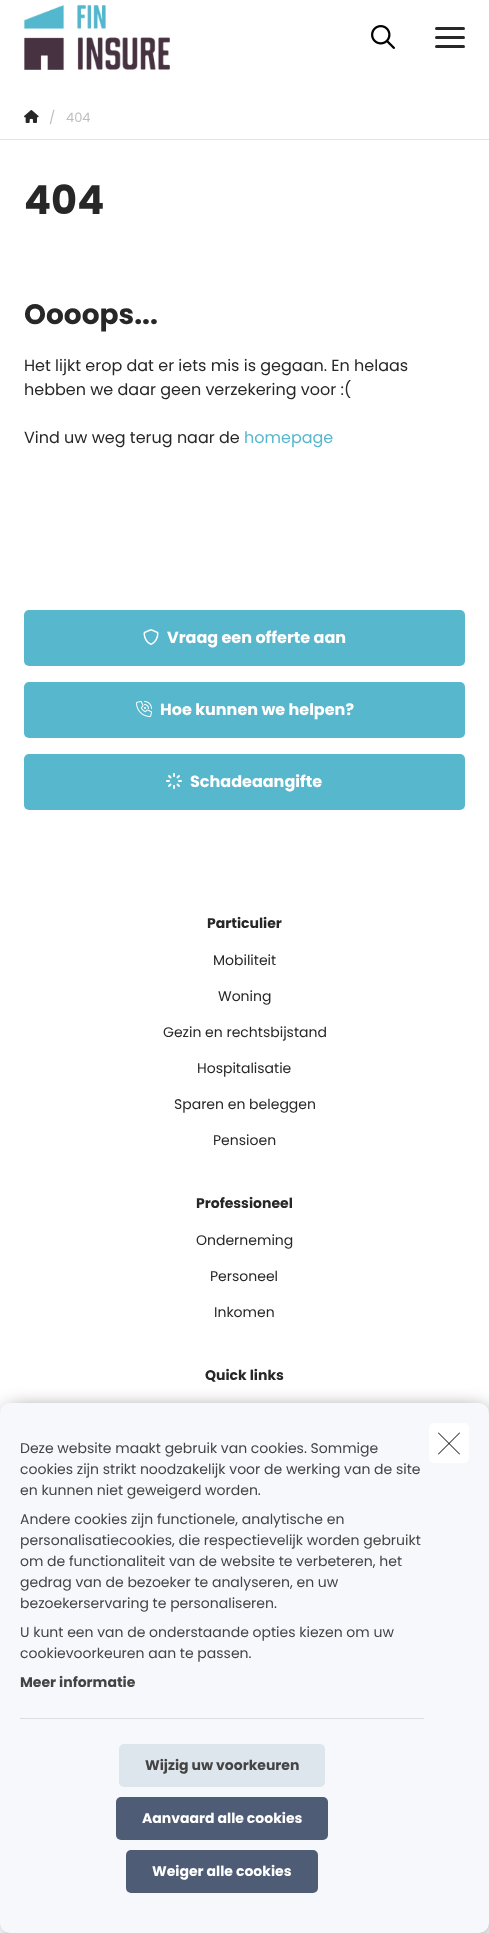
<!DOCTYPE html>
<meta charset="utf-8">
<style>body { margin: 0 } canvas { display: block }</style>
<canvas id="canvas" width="489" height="1933"></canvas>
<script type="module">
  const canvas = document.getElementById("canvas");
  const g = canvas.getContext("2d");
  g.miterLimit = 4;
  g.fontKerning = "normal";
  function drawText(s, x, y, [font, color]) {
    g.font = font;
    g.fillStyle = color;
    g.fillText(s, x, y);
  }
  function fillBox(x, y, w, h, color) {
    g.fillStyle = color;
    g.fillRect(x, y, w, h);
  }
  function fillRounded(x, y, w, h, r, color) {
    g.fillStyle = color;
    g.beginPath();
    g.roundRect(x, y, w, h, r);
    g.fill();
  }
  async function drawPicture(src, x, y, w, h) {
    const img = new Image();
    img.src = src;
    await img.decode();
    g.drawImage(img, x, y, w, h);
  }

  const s1 = ["13px Poppins", "#BEBEBE"];
  const s2 = ["bold 40px Poppins", "#272727"];
  const s3 = ["bold 28px Poppins", "#272727"];
  const s4 = ["16px Poppins", "#272727"];
  const s5 = ["16px Poppins", "#57B7CD"];
  const s6 = ["bold 16px Poppins", "#FFFFFF"];
  const s7 = ["bold 14px Poppins", "#272727"];
  const s8 = ["14px Poppins", "#272727"];
  const s9 = ["14px Poppins", "#444444"];
  const s10 = ["bold 14px Poppins", "#444444"];
  const s11 = ["bold 14px Poppins", "#FFFFFF"];

  fillBox(0, 0, 489, 1933, "#FFFFFF");
  await drawPicture("pic1.png", 24, 5, 146, 65);
  await drawPicture("pic2.png", 371, 25, 24, 24);
  fillRounded(435, 36, 30, 3, 1.5, "#272727");
  fillRounded(435, 27, 30, 3, 1.5, "#272727");
  fillRounded(435, 45, 30, 3, 1.5, "#272727");
  fillBox(0, 139, 489, 1, "#DEE5EC");
  await drawPicture("pic3.png", 24, 110, 15, 13);
  drawText("/", 49, 122, s1);
  drawText("404", 66, 122, s1);
  drawText("404", 24, 214, s2);
  drawText("Oooops...", 24, 324, s3);
  drawText("Het lijkt erop dat er iets mis is gegaan. En helaas", 24, 371, s4);
  drawText("hebben we daar geen verzekering voor :(", 24, 395, s4);
  drawText("Vind uw weg terug naar de", 24, 443, s4);
  drawText("homepage", 244, 443, s5);
  fillRounded(24, 610, 441, 56, 5, "#57B7CD");
  await drawPicture("pic4.png", 143, 629, 16, 16);
  drawText("Vraag een offerte aan", 167, 643, s6);
  fillRounded(24, 682, 441, 56, 5, "#57B7CD");
  await drawPicture("pic5.png", 136, 701, 16, 16);
  drawText("Hoe kunnen we helpen?", 160, 715, s6);
  fillRounded(24, 754, 441, 56, 5, "#57B7CD");
  await drawPicture("pic6.png", 166, 773, 16, 16);
  drawText("Schadeaangifte", 190, 787, s6);
  drawText("Particulier", 207, 928, s7);
  drawText("Mobiliteit", 213, 965, s8);
  drawText("Woning", 218, 1001, s8);
  drawText("Gezin en rechtsbijstand", 163, 1037, s8);
  drawText("Hospitalisatie", 197, 1073, s8);
  drawText("Sparen en beleggen", 174, 1109, s8);
  drawText("Pensioen", 213, 1145, s8);
  drawText("Professioneel", 196, 1208, s7);
  drawText("Onderneming", 196, 1245, s8);
  drawText("Personeel", 210, 1281, s8);
  drawText("Inkomen", 214, 1317, s8);
  drawText("Quick links", 205, 1380, s7);
  g.fillStyle = "rgba(0, 0, 0, 0.75)";
  g.filter = "blur(10.5px)";
  g.beginPath();
  g.roundRect(8, 1412, 477, 518, 4);
  g.fill();
  g.filter = "none";
  fillRounded(0, 1403, 489, 530, 10, "#F6F8FC");
  fillBox(20, 1718, 404, 1, "#DDDDDD");
  drawText("Deze website maakt gebruik van cookies. Sommige", 20, 1453, s9);
  drawText("cookies zijn strikt noodzakelijk voor de werking van de site", 20, 1474, s9);
  drawText("en kunnen niet geweigerd worden.", 20, 1495, s9);
  drawText("Andere cookies zijn functionele, analytische en", 20, 1524, s9);
  drawText("personalisatiecookies, die respectievelijk worden gebruikt", 20, 1545, s9);
  drawText("om de functionaliteit van de website te verbeteren, het", 20, 1566, s9);
  drawText("gedrag van de bezoeker te analyseren, en uw", 20, 1587, s9);
  drawText("bezoekerservaring te personaliseren.", 20, 1608, s9);
  drawText("U kunt een van de onderstaande opties kiezen om uw", 20, 1637, s9);
  drawText("cookievoorkeuren aan te passen.", 20, 1658, s9);
  drawText("Meer informatie", 20, 1687, s10);
  fillRounded(119, 1744, 206, 43, 5, "#DDE5ED");
  drawText("Wijzig uw voorkeuren", 145, 1770, s10);
  fillRounded(116, 1797, 212, 43, 5, "#4E5C76");
  drawText("Aanvaard alle cookies", 142, 1823, s11);
  fillRounded(126, 1850, 192, 43, 5, "#4E5C76");
  drawText("Weiger alle cookies", 152, 1876, s11);
  fillRounded(429, 1423, 40, 40, 5, "#FFFFFF");
  g.fillStyle = "#000000";
  g.beginPath();
  g.moveTo(438.5, 1432.5);
  g.lineTo(460, 1454);
  g.lineTo(459.5, 1454.5);
  g.lineTo(438, 1433);
  g.closePath();
  g.fill();
  g.beginPath();
  g.moveTo(438, 1454);
  g.lineTo(459.5, 1432.5);
  g.lineTo(460, 1433);
  g.lineTo(438.5, 1454.5);
  g.closePath();
  g.fill();
</script>
